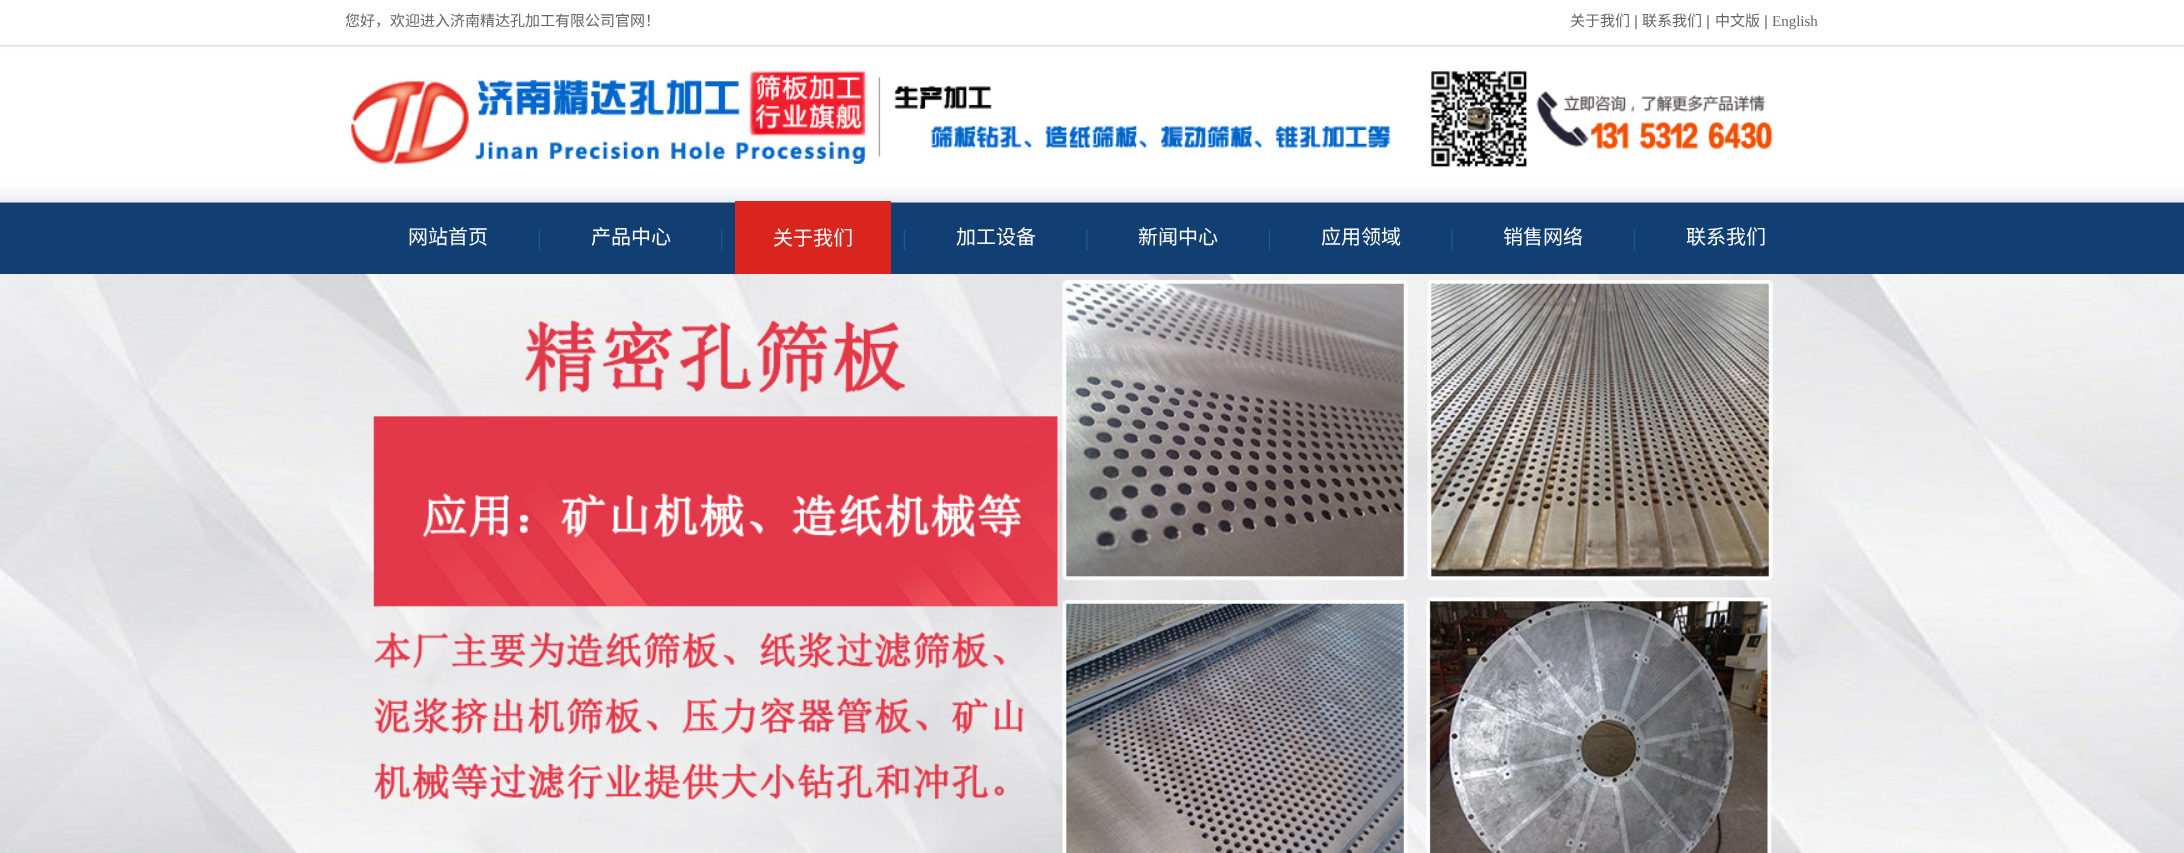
<!DOCTYPE html>
<meta charset="utf-8">
<style>body { margin: 0 } canvas { display: block }</style>
<canvas id="canvas" width="2184" height="853"></canvas>
<script type="module">
  const canvas = document.getElementById("canvas");
  const g = canvas.getContext("2d");
  g.miterLimit = 4;
  g.fontKerning = "normal";
  function drawText(s, x, y, [font, color]) {
    g.font = font;
    g.fillStyle = color;
    g.fillText(s, x, y);
  }
  function fillBox(x, y, w, h, color) {
    g.fillStyle = color;
    g.fillRect(x, y, w, h);
  }
  async function drawPicture(src, x, y, w, h) {
    const img = new Image();
    img.src = src;
    await img.decode();
    g.drawImage(img, x, y, w, h);
  }

  const s1 = ["15px Noto Sans CJK SC", "#666666"];
  const s2 = ["15px Liberation Sans", "#666666"];
  const s3 = ["15px Liberation Serif", "#666666"];
  const s4 = ["20px Noto Sans CJK SC", "#FFFFFF"];

  fillBox(0, 0, 2184, 853, "#FFFFFF");
  await drawPicture("pic1.png", 0, 45, 2184, 229);
  drawText("您好，欢迎进入济南精达孔加工有限公司官网！", 345, 26, s1);
  drawText("关于我们", 1570, 26, s1);
  drawText("|", 1634, 26, s2);
  drawText("联系我们", 1642, 26, s1);
  drawText("|", 1706, 26, s2);
  drawText("中文版", 1715, 26, s1);
  drawText("|", 1764, 26, s2);
  drawText("English", 1772, 26, s3);
  await drawPicture("pic2.png", 350, 70, 1045, 95);
  await drawPicture("pic3.png", 1431, 71, 342, 97);
  drawText("网站首页", 408, 244, s4);
  await drawPicture("pic4.png", 538, 230, 2, 20);
  drawText("产品中心", 591, 244, s4);
  await drawPicture("pic5.png", 721, 230, 2, 20);
  fillBox(735, 201, 156, 73, "#DA251E");
  drawText("关于我们", 773, 245, s4);
  await drawPicture("pic4.png", 903, 230, 2, 20);
  drawText("加工设备", 956, 244, s4);
  await drawPicture("pic5.png", 1086, 230, 2, 20);
  drawText("新闻中心", 1138, 244, s4);
  await drawPicture("pic4.png", 1268, 230, 2, 20);
  drawText("应用领域", 1321, 244, s4);
  await drawPicture("pic5.png", 1451, 230, 2, 20);
  drawText("销售网络", 1503, 244, s4);
  await drawPicture("pic4.png", 1633, 230, 2, 20);
  drawText("联系我们", 1686, 244, s4);
  await drawPicture("pic6.png", 0, 274, 2184, 579);
</script>
